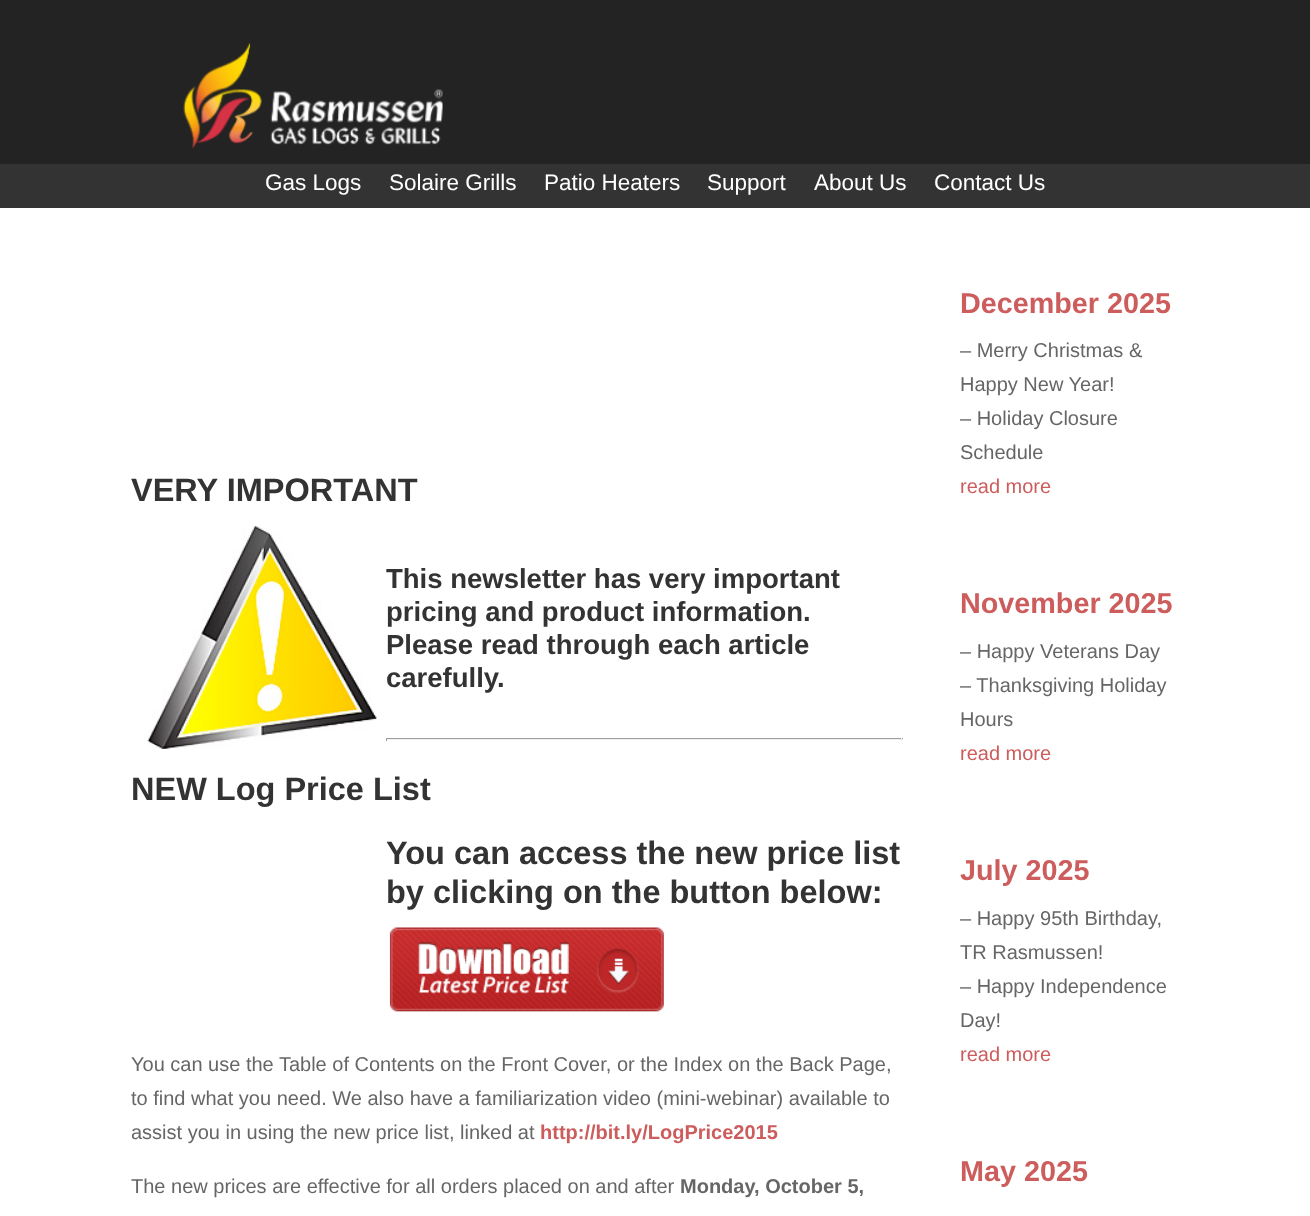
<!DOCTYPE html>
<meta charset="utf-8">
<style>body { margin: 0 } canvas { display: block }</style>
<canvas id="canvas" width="1310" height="1216"></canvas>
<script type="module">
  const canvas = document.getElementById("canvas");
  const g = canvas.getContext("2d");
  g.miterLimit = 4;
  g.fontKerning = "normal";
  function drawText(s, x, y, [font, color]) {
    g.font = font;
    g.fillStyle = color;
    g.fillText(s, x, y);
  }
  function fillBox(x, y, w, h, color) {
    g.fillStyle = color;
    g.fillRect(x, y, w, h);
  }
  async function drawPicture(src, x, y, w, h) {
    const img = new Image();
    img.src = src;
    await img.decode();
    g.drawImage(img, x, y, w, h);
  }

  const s1 = ["22.5px Liberation Sans", "#FFFFFF"];
  const s2 = ["bold 32.5px Liberation Sans", "#333333"];
  const s3 = ["bold 27.5px Liberation Sans", "#333333"];
  const s4 = ["20px Liberation Sans", "#666666"];
  const s5 = ["bold 20px Liberation Sans", "#CD5C5C"];
  const s6 = ["bold 20px Liberation Sans", "#666666"];
  const s7 = ["bold 28.75px Liberation Sans", "#CD5C5C"];
  const s8 = ["20px Liberation Sans", "#CD5C5C"];

  fillBox(0, 0, 1310, 1216, "#FFFFFF");
  fillBox(0, 0, 1310, 164, "#232323");
  await drawPicture("pic1.png", 183, 42, 260, 107);
  fillBox(0, 164, 1310, 44, "#333333");
  drawText("Gas Logs", 265, 190, s1);
  drawText("Solaire Grills", 389, 190, s1);
  drawText("Patio Heaters", 544, 190, s1);
  drawText("Support", 707, 190, s1);
  drawText("About Us", 814, 190, s1);
  drawText("Contact Us", 934, 190, s1);
  drawText("VERY IMPORTANT", 131, 501, s2);
  await drawPicture("pic2.png", 147, 526, 230, 223);
  drawText("This newsletter has very important", 386, 588, s3);
  drawText("pricing and product information.", 386, 621, s3);
  drawText("Please read through each article", 386, 654, s3);
  drawText("carefully.", 386, 687, s3);
  fillBox(386, 738, 517, 1, "#9F9F9F");
  fillBox(901, 738, 1, 3, "#EEEEEE");
  fillBox(386, 739, 517, 1, "#EEEEEE");
  fillBox(386, 738, 1, 3, "#9F9F9F");
  drawText("NEW Log Price List", 131, 800, s2);
  drawText("You can access the new price list", 386, 864, s2);
  drawText("by clicking on the button below:", 386, 903, s2);
  await drawPicture("pic3.png", 389, 927, 275, 85);
  drawText("You can use the Table of Contents on the Front Cover, or the Index on the Back Page,", 131, 1071, s4);
  drawText("to find what you need. We also have a familiarization video (mini-webinar) available to", 131, 1105, s4);
  drawText("assist you in using the new price list, linked at", 131, 1139, s4);
  drawText("http://bit.ly/LogPrice2015", 540, 1139, s5);
  drawText("The new prices are effective for all orders placed on and after", 131, 1193, s4);
  drawText("Monday, October 5,", 680, 1193, s6);
  drawText("December 2025", 960, 313, s7);
  drawText("– Merry Christmas &", 960, 357, s4);
  drawText("Happy New Year!", 960, 391, s4);
  drawText("– Holiday Closure", 960, 425, s4);
  drawText("Schedule", 960, 459, s4);
  drawText("read more", 960, 493, s8);
  drawText("November 2025", 960, 613, s7);
  drawText("– Happy Veterans Day", 960, 658, s4);
  drawText("– Thanksgiving Holiday", 960, 692, s4);
  drawText("Hours", 960, 726, s4);
  drawText("read more", 960, 760, s8);
  drawText("July 2025", 960, 880, s7);
  drawText("– Happy 95th Birthday,", 960, 925, s4);
  drawText("TR Rasmussen!", 960, 959, s4);
  drawText("– Happy Independence", 960, 993, s4);
  drawText("Day!", 960, 1027, s4);
  drawText("read more", 960, 1061, s8);
  drawText("May 2025", 960, 1181, s7);
</script>
